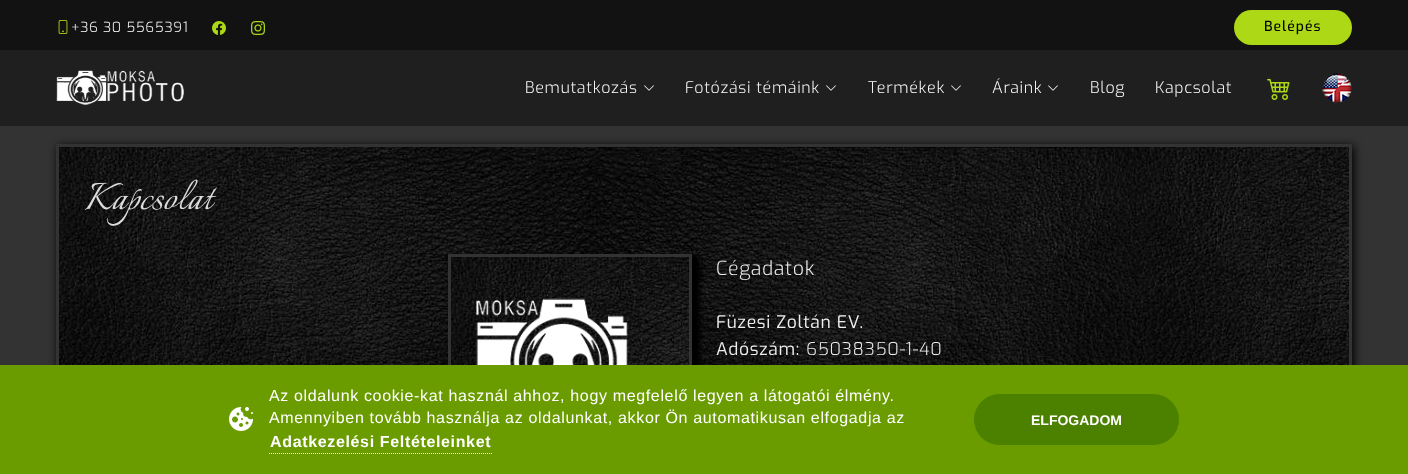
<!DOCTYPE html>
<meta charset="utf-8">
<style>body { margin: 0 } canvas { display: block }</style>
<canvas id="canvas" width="1408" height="474"></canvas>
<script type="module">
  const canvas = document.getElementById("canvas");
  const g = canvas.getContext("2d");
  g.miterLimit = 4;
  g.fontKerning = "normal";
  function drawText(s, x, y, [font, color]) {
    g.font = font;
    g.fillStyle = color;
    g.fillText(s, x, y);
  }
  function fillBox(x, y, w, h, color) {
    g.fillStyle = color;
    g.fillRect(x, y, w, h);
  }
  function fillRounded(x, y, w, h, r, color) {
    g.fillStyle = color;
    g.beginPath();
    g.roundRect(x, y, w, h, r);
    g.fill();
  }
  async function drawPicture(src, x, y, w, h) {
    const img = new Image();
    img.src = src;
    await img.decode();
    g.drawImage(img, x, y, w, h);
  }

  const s1 = ["300 14px Exo", "#FFFFFF"];
  const s2 = ["500 14px Exo", "#000000"];
  const s3 = ["300 16px Exo", "#FFFFFF"];
  const s4 = ["48px Italianno", "#DDDDDD"];
  const s5 = ["300 19.5px Exo", "#EEEEEE"];
  const s6 = ["17.5px Exo", "#EEEEEE"];
  const s7 = ["300 17.5px Exo", "#EEEEEE"];
  const s8 = ["16px Liberation Sans", "#FFFFFF"];
  const s9 = ["bold 16px Liberation Sans", "#FFFFFF"];
  const s10 = ["bold 14px Liberation Sans", "#FFFFFF"];

  fillBox(0, 0, 1408, 474, "#333333");
  fillBox(0, 0, 1408, 50, "#121212");
  await drawPicture("pic1.png", 58, 20, 10, 14);
  g.letterSpacing = "0.65px";
  drawText("+36 30 5565391", 71, 32, s1);
  await drawPicture("pic2.png", 212, 21, 14, 14);
  await drawPicture("pic3.png", 251, 21, 14, 14);
  fillRounded(1234, 10, 118, 35, 17.5, "#ACD815");
  g.letterSpacing = "1px";
  drawText("Belépés", 1264, 31, s2);
  fillBox(0, 50, 1408, 76, "#1F1F1F");
  await drawPicture("pic4.png", 56, 70, 128, 35);
  g.letterSpacing = "0.65px";
  drawText("Bemutatkozás", 525, 93, s3);
  await drawPicture("pic5.png", 644, 85, 10, 6);
  drawText("Fotózási témáink", 685, 93, s3);
  await drawPicture("pic5.png", 826, 85, 10, 6);
  drawText("Termékek", 868, 93, s3);
  await drawPicture("pic5.png", 951, 85, 10, 6);
  drawText("Áraink", 992, 93, s3);
  await drawPicture("pic5.png", 1048, 85, 10, 6);
  drawText("Blog", 1090, 93, s3);
  drawText("Kapcsolat", 1155, 93, s3);
  await drawPicture("pic6.png", 1267, 78, 23, 22);
  await drawPicture("pic7.png", 1322, 73, 30, 30);
  g.fillStyle = "#000000";
  g.filter = "blur(5px)";
  g.beginPath();
  g.rect(58, 146, 1296, 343);
  g.fill();
  g.filter = "none";
  await drawPicture("pic8.png", 59, 147, 1290, 218);
  g.strokeStyle = "#333333";
  g.lineWidth = 3;
  g.strokeRect(57.5, 145.5, 1293, 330);
  drawText("Kapcsolat", 85, 209, s4);
  g.fillStyle = "#000000";
  g.filter = "blur(2.5px)";
  g.beginPath();
  g.rect(450, 256, 250, 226);
  g.fill();
  g.filter = "none";
  await drawPicture("pic9.png", 451, 257, 238, 108);
  g.strokeRect(449.5, 255.5, 241, 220);
  await drawPicture("pic10.png", 476, 298, 152, 67);
  drawText("Cégadatok", 716, 275, s5);
  drawText("Füzesi Zoltán EV.", 716, 328, s6);
  drawText("Adószám:", 716, 355, s6);
  drawText("65038350-1-40", 806, 355, s7);
  fillBox(0, 365, 1408, 109, "#6A9C00");
  await drawPicture("pic11.png", 229, 407, 24, 24);
  drawText("Az oldalunk cookie-kat használ ahhoz, hogy megfelelő legyen a látogatói élmény.", 269, 401, s8);
  drawText("Amennyiben tovább használja az oldalunkat, akkor Ön automatikusan elfogadja az", 269, 423, s8);
  g.beginPath();
  g.moveTo(269, 453.5);
  g.lineTo(492, 453.5);
  g.strokeStyle = "#FFFFFF";
  g.lineWidth = 1;
  g.setLineDash([1, 1]);
  g.stroke();
  drawText("Adatkezelési Feltételeinket", 270, 447, s9);
  fillRounded(974, 394, 205, 51, 25.5, "#4C8100");
  g.letterSpacing = "0px";
  drawText("ELFOGADOM", 1031, 425, s10);
</script>
